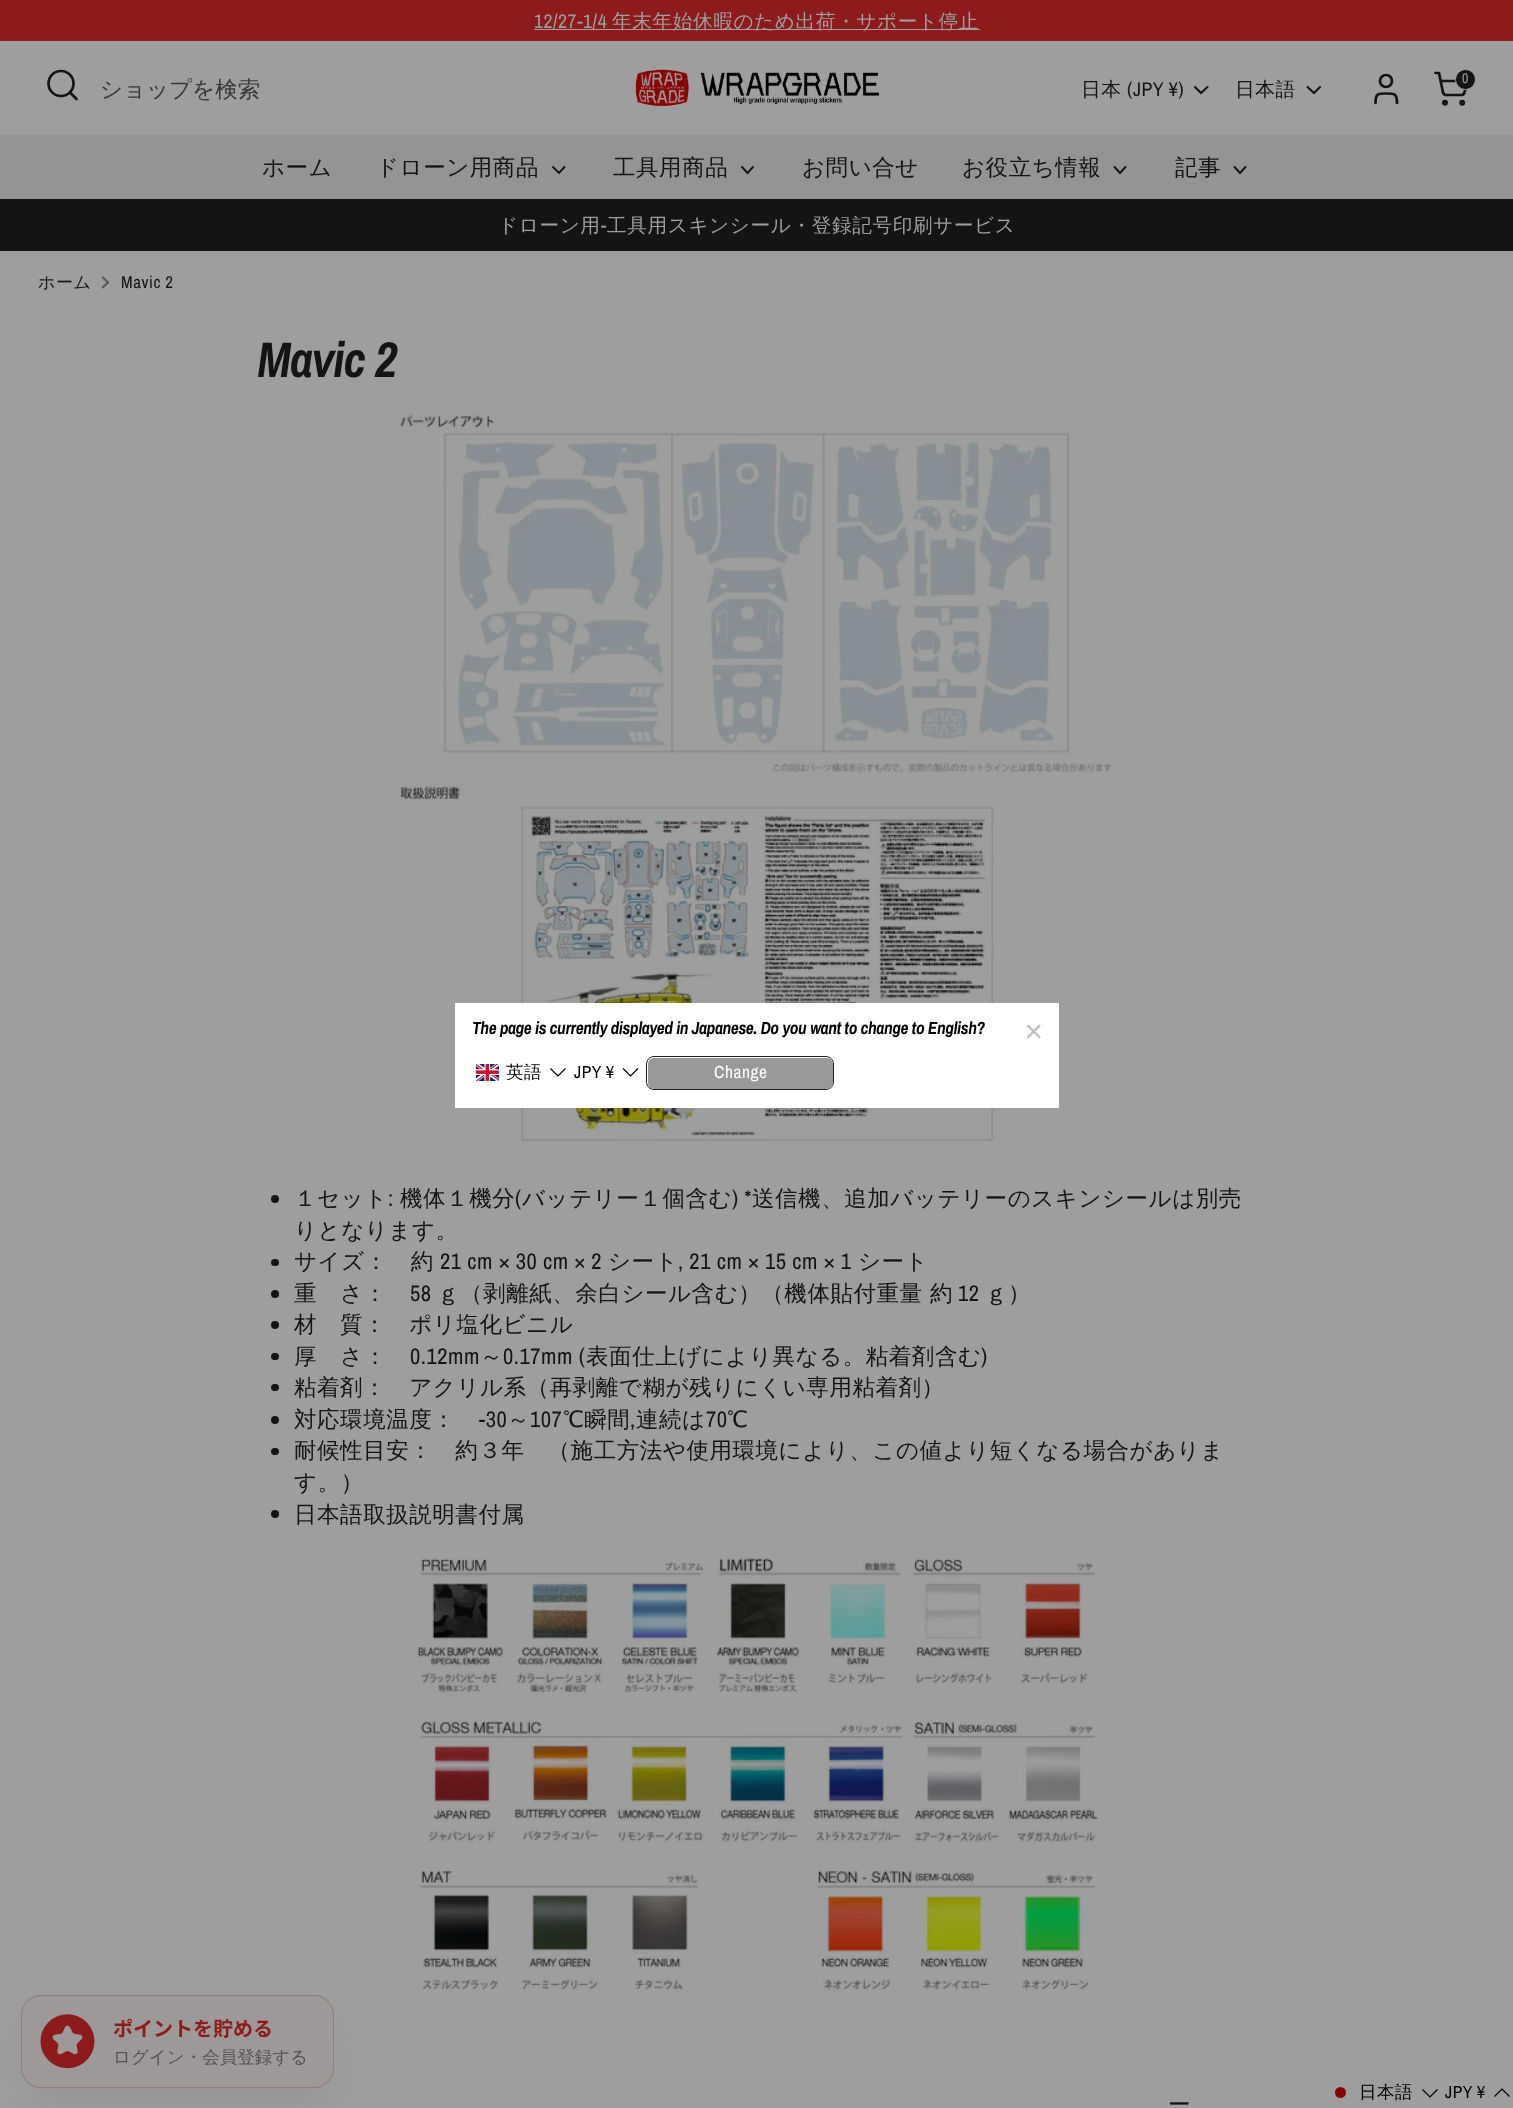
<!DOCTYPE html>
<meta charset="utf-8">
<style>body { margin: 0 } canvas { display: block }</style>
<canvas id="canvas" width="1513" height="2108"></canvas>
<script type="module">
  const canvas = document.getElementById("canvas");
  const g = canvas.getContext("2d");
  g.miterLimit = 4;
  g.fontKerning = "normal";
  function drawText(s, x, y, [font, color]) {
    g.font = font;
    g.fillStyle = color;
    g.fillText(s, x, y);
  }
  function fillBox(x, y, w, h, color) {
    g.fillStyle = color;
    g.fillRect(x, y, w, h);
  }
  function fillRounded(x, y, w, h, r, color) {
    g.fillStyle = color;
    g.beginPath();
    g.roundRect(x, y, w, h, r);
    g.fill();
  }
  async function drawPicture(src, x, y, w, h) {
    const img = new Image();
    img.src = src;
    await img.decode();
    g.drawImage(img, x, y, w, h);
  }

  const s1 = ["19.7px Archivo Narrow", "#9E9E9E"];
  const s2 = ["500 19.7px WenQuanYi Zen Hei", "#9E9E9E"];
  const s3 = ["500 22.5px WenQuanYi Zen Hei", "#373737"];
  const s4 = ["500 19.7px WenQuanYi Zen Hei", "#141414"];
  const s5 = ["19.7px Archivo Narrow", "#141414"];
  const s6 = ["14px Archivo Narrow", "#9E9E9E"];
  const s7 = ["500 22.5px WenQuanYi Zen Hei", "#141414"];
  const s8 = ["500 17px WenQuanYi Zen Hei", "#141414"];
  const s9 = ["17px Archivo Narrow", "#141414"];
  const s10 = ["italic bold 50px Archivo Narrow", "#141414"];
  const s11 = ["22.5px Archivo Narrow", "#141414"];
  const s12 = ["italic bold 17.5px Archivo Narrow", "#000000"];
  const s13 = ["500 17.5px WenQuanYi Zen Hei", "#000000"];
  const s14 = ["17.5px Archivo Narrow", "#000000"];
  const s15 = ["17.5px Archivo Narrow", "#FFFFFF"];
  const s16 = ["bold 20px Noto Sans JP", "#8D1B1B"];
  const s17 = ["500 17.5px WenQuanYi Zen Hei", "#555354"];

  fillBox(0, 0, 1513, 2108, "#9E9E9E");
  fillBox(0, 0, 1513, 41, "#8D1B1B");
  g.letterSpacing = "0.55px";
  drawText("12/27-1/4", 534, 28, s1);
  fillBox(534, 29, 446, 1, "#9E9E9E");
  drawText("年末年始休暇のため出荷・サポート停止", 612, 28, s2);
  g.beginPath();
  g.arc(61, 83.5, 12.5, 0, Math.PI * 2);
  g.strokeStyle = "#141414";
  g.lineWidth = 2.7;
  g.stroke();
  g.beginPath();
  g.moveTo(76.5, 99);
  g.lineTo(70, 92.5);
  g.lineCap = "round";
  g.lineJoin = "round";
  g.stroke();
  g.letterSpacing = "0px";
  drawText("ショップを検索", 100, 97, s3);
  await drawPicture("pic1.png", 635, 69, 244, 38);
  g.letterSpacing = "0.55px";
  drawText("日本", 1081, 96, s4);
  drawText("(JPY ¥)", 1127, 96, s5);
  g.beginPath();
  g.moveTo(1195, 87);
  g.lineTo(1201, 93);
  g.lineTo(1207.5, 87);
  g.lineWidth = 2.1;
  g.lineJoin = "miter";
  g.stroke();
  drawText("日本語", 1235, 96, s4);
  g.beginPath();
  g.moveTo(1307.5, 87);
  g.lineTo(1314, 93);
  g.lineTo(1320, 87);
  g.stroke();
  g.beginPath();
  g.moveTo(1397, 103);
  g.bezierCurveTo(1397, 93.5, 1394.5, 93.5, 1386, 93.5);
  g.bezierCurveTo(1378, 93.5, 1375.5, 93.5, 1375.5, 103);
  g.lineWidth = 2.7;
  g.lineJoin = "round";
  g.stroke();
  g.beginPath();
  g.arc(1386, 81, 6, 0, Math.PI * 2);
  g.stroke();
  g.beginPath();
  g.arc(1445, 102.8, 1.6, 0, Math.PI * 2);
  g.stroke();
  g.beginPath();
  g.arc(1462.2, 102.8, 1.6, 0, Math.PI * 2);
  g.stroke();
  g.beginPath();
  g.moveTo(1435.5, 73);
  g.lineTo(1439, 73);
  g.lineTo(1443, 92.5);
  g.bezierCurveTo(1443.5, 94, 1444.5, 95, 1446, 95);
  g.lineTo(1461.5, 95);
  g.bezierCurveTo(1463, 95, 1464, 94, 1464.5, 92.5);
  g.lineTo(1467, 81);
  g.lineTo(1440.5, 81);
  g.stroke();
  g.beginPath();
  g.arc(1465.5, 79.5, 10, 0, Math.PI * 2);
  g.fill();
  g.strokeStyle = "#9E9E9E";
  g.lineWidth = 1;
  g.stroke();
  g.letterSpacing = "0px";
  drawText("0", 1462, 83, s6);
  fillBox(0, 135, 1513, 64, "#949494");
  g.letterSpacing = "0.55px";
  drawText("ホーム", 262, 175, s7);
  drawText("ドローン用商品", 376, 175, s7);
  g.beginPath();
  g.moveTo(553, 167);
  g.lineTo(559, 173);
  g.lineTo(564.5, 167);
  g.strokeStyle = "#141414";
  g.lineWidth = 1.9;
  g.lineJoin = "miter";
  g.stroke();
  drawText("工具用商品", 613, 175, s7);
  g.beginPath();
  g.moveTo(742, 167);
  g.lineTo(747.5, 173);
  g.lineTo(753, 167);
  g.stroke();
  drawText("お問い合せ", 802, 175, s7);
  drawText("お役立ち情報", 962, 175, s7);
  g.beginPath();
  g.moveTo(1114.5, 167);
  g.lineTo(1120, 173);
  g.lineTo(1125.5, 167);
  g.stroke();
  drawText("記事", 1175, 175, s7);
  g.beginPath();
  g.moveTo(1234.5, 167);
  g.lineTo(1240, 173);
  g.lineTo(1245.5, 167);
  g.stroke();
  fillBox(0, 199, 1513, 52, "#141414");
  drawText("ドローン用", 498, 232, s2);
  drawText("-", 601, 232, s1);
  drawText("工具用スキンシール・登録記号印刷サービス", 607, 232, s2);
  drawText("ホーム", 38, 288, s8);
  await drawPicture("pic2.png", 101, 276, 9, 13);
  drawText("Mavic 2", 121, 288, s9);
  g.letterSpacing = "-1.25px";
  drawText("Mavic 2", 257, 377, s10);
  await drawPicture("pic3.png", 398, 412, 715, 730);
  g.beginPath();
  g.arc(275, 1199, 4, 0, Math.PI * 2);
  g.fill();
  g.letterSpacing = "0.55px";
  drawText("１セット", 294, 1206, s7);
  drawText(":", 388, 1206, s11);
  drawText("機体１機分", 400, 1206, s7);
  drawText("(", 515, 1206, s11);
  drawText("バッテリー１個含む", 522, 1206, s7);
  drawText(") *", 732, 1206, s11);
  drawText("送信機、追加バッテリーのスキンシールは別売", 752, 1206, s7);
  drawText("りとなります。", 294, 1238, s7);
  fillRounded(271, 1259, 8, 7, 3.5, "#141414");
  drawText("サイズ：　約", 294, 1269, s7);
  drawText("21 cm × 30 cm × 2", 440, 1269, s11);
  drawText("シート", 608, 1269, s7);
  drawText(", 21 cm × 15 cm × 1", 678, 1269, s11);
  drawText("シート", 858, 1269, s7);
  g.beginPath();
  g.arc(275, 1294, 4, 0, Math.PI * 2);
  g.fill();
  drawText("重　さ：", 294, 1301, s7);
  drawText("58", 410, 1301, s11);
  drawText("ｇ（剥離紙、余白シール含む）（機体貼付重量 約", 437, 1301, s7);
  drawText("12", 958, 1301, s11);
  drawText("ｇ）", 985, 1301, s7);
  g.beginPath();
  g.arc(275, 1325, 4, 0, Math.PI * 2);
  g.fill();
  drawText("材　質：　ポリ塩化ビニル", 294, 1332, s7);
  fillRounded(271, 1353, 8, 7, 3.5, "#141414");
  drawText("厚　さ：", 294, 1364, s7);
  drawText("0.12mm", 410, 1364, s11);
  drawText("～", 480, 1364, s7);
  drawText("0.17mm (", 503, 1364, s11);
  drawText("表面仕上げにより異なる。粘着剤含む", 586, 1364, s7);
  drawText(")", 981, 1364, s11);
  fillRounded(271, 1384, 8, 7, 3.5, "#141414");
  drawText("粘着剤：　アクリル系（再剥離で糊が残りにくい専用粘着剤）", 294, 1395, s7);
  g.beginPath();
  g.arc(275, 1420, 4, 0, Math.PI * 2);
  g.fill();
  drawText("対応環境温度：", 294, 1427, s7);
  drawText("-30", 479, 1427, s11);
  drawText("～", 507, 1427, s7);
  drawText("107", 530, 1427, s11);
  drawText("℃瞬間", 563, 1427, s7);
  drawText("連続は", 636, 1427, s7);
  drawText("70", 706, 1427, s11);
  drawText("℃", 727, 1427, s7);
  drawText(",", 630, 1427, s11);
  fillRounded(271, 1448, 8, 7, 3.5, "#141414");
  drawText("耐候性目安：　約３年　（施工方法や使用環境により、この値より短くなる場合がありま", 294, 1458, s7);
  drawText("す。）", 294, 1490, s7);
  g.beginPath();
  g.arc(275, 1514, 4, 0, Math.PI * 2);
  g.fill();
  drawText("日本語取扱説明書付属", 294, 1522, s7);
  await drawPicture("pic4.png", 417, 1548, 681, 444);
  drawText("ー", 1168, 2112, s7);
  fillBox(455, 1003, 604, 105, "#FFFFFF");
  g.letterSpacing = "-0.45px";
  drawText("The page is currently displayed in Japanese. Do you want to change to English?", 472, 1034, s12);
  g.fillStyle = "#C2C2C2";
  g.beginPath();
  g.moveTo(1039, 1024.5);
  g.lineTo(1041, 1026);
  g.lineTo(1028.5, 1038.5);
  g.lineTo(1026.5, 1037);
  g.closePath();
  g.fill();
  g.beginPath();
  g.moveTo(1026.5, 1026);
  g.lineTo(1028.5, 1024.5);
  g.lineTo(1041, 1037);
  g.lineTo(1039, 1038.5);
  g.closePath();
  g.fill();
  await drawPicture("pic5.png", 476, 1064, 23, 17);
  g.letterSpacing = "0.55px";
  drawText("英語", 506, 1078, s13);
  g.beginPath();
  g.moveTo(550.5, 1068.5);
  g.lineTo(558, 1076);
  g.lineTo(565.5, 1068.5);
  g.strokeStyle = "#000000";
  g.lineWidth = 1.2;
  g.lineCap = "butt";
  g.stroke();
  drawText("JPY", 574, 1078, s14);
  drawText("¥", 606, 1078, s14);
  g.beginPath();
  g.moveTo(623, 1068.5);
  g.lineTo(630.5, 1076);
  g.lineTo(638, 1068.5);
  g.stroke();
  g.beginPath();
  g.roundRect(646.5, 1056.5, 187, 33, 7.5);
  g.strokeStyle = "#202020";
  g.lineWidth = 1;
  g.stroke();
  fillRounded(648, 1058, 185, 31, 6, "#999999");
  drawText("Change", 714, 1078, s15);
  g.fillStyle = "rgba(11, 15, 24, 0.1)";
  g.filter = "blur(20px)";
  g.beginPath();
  g.roundRect(34, 2028, 287, 67, 8);
  g.fill();
  g.filter = "none";
  g.fillStyle = "rgba(0, 0, 0, 0.15)";
  g.filter = "blur(0.5px)";
  g.beginPath();
  g.roundRect(21, 1995, 313, 93, 20);
  g.fill();
  g.filter = "none";
  fillRounded(21, 1995, 313, 93, 20, "#9D9999");
  g.beginPath();
  g.roundRect(21.5, 1995.5, 312, 92, 19.5);
  g.strokeStyle = "rgba(141, 27, 27, 0.25)";
  g.stroke();
  await drawPicture("pic6.png", 40, 2014, 55, 55);
  g.letterSpacing = "0px";
  drawText("ポイントを貯める", 113, 2036, s16);
  drawText("ログイン・会員登録する", 113, 2063, s17);
  g.fillStyle = "#830000";
  g.beginPath();
  g.arc(1340.5, 2092.5, 5.5, 0, Math.PI * 2);
  g.fill();
  g.letterSpacing = "0.55px";
  drawText("日本語", 1359, 2098, s13);
  g.beginPath();
  g.moveTo(1422.5, 2089.5);
  g.lineTo(1430, 2097);
  g.lineTo(1437.5, 2089.5);
  g.strokeStyle = "#000000";
  g.lineWidth = 1.2;
  g.stroke();
  drawText("JPY", 1445, 2098, s14);
  drawText("¥", 1477, 2098, s14);
  g.beginPath();
  g.moveTo(1509.5, 2096.5);
  g.lineTo(1502, 2089);
  g.lineTo(1494.5, 2096.5);
  g.stroke();
</script>
